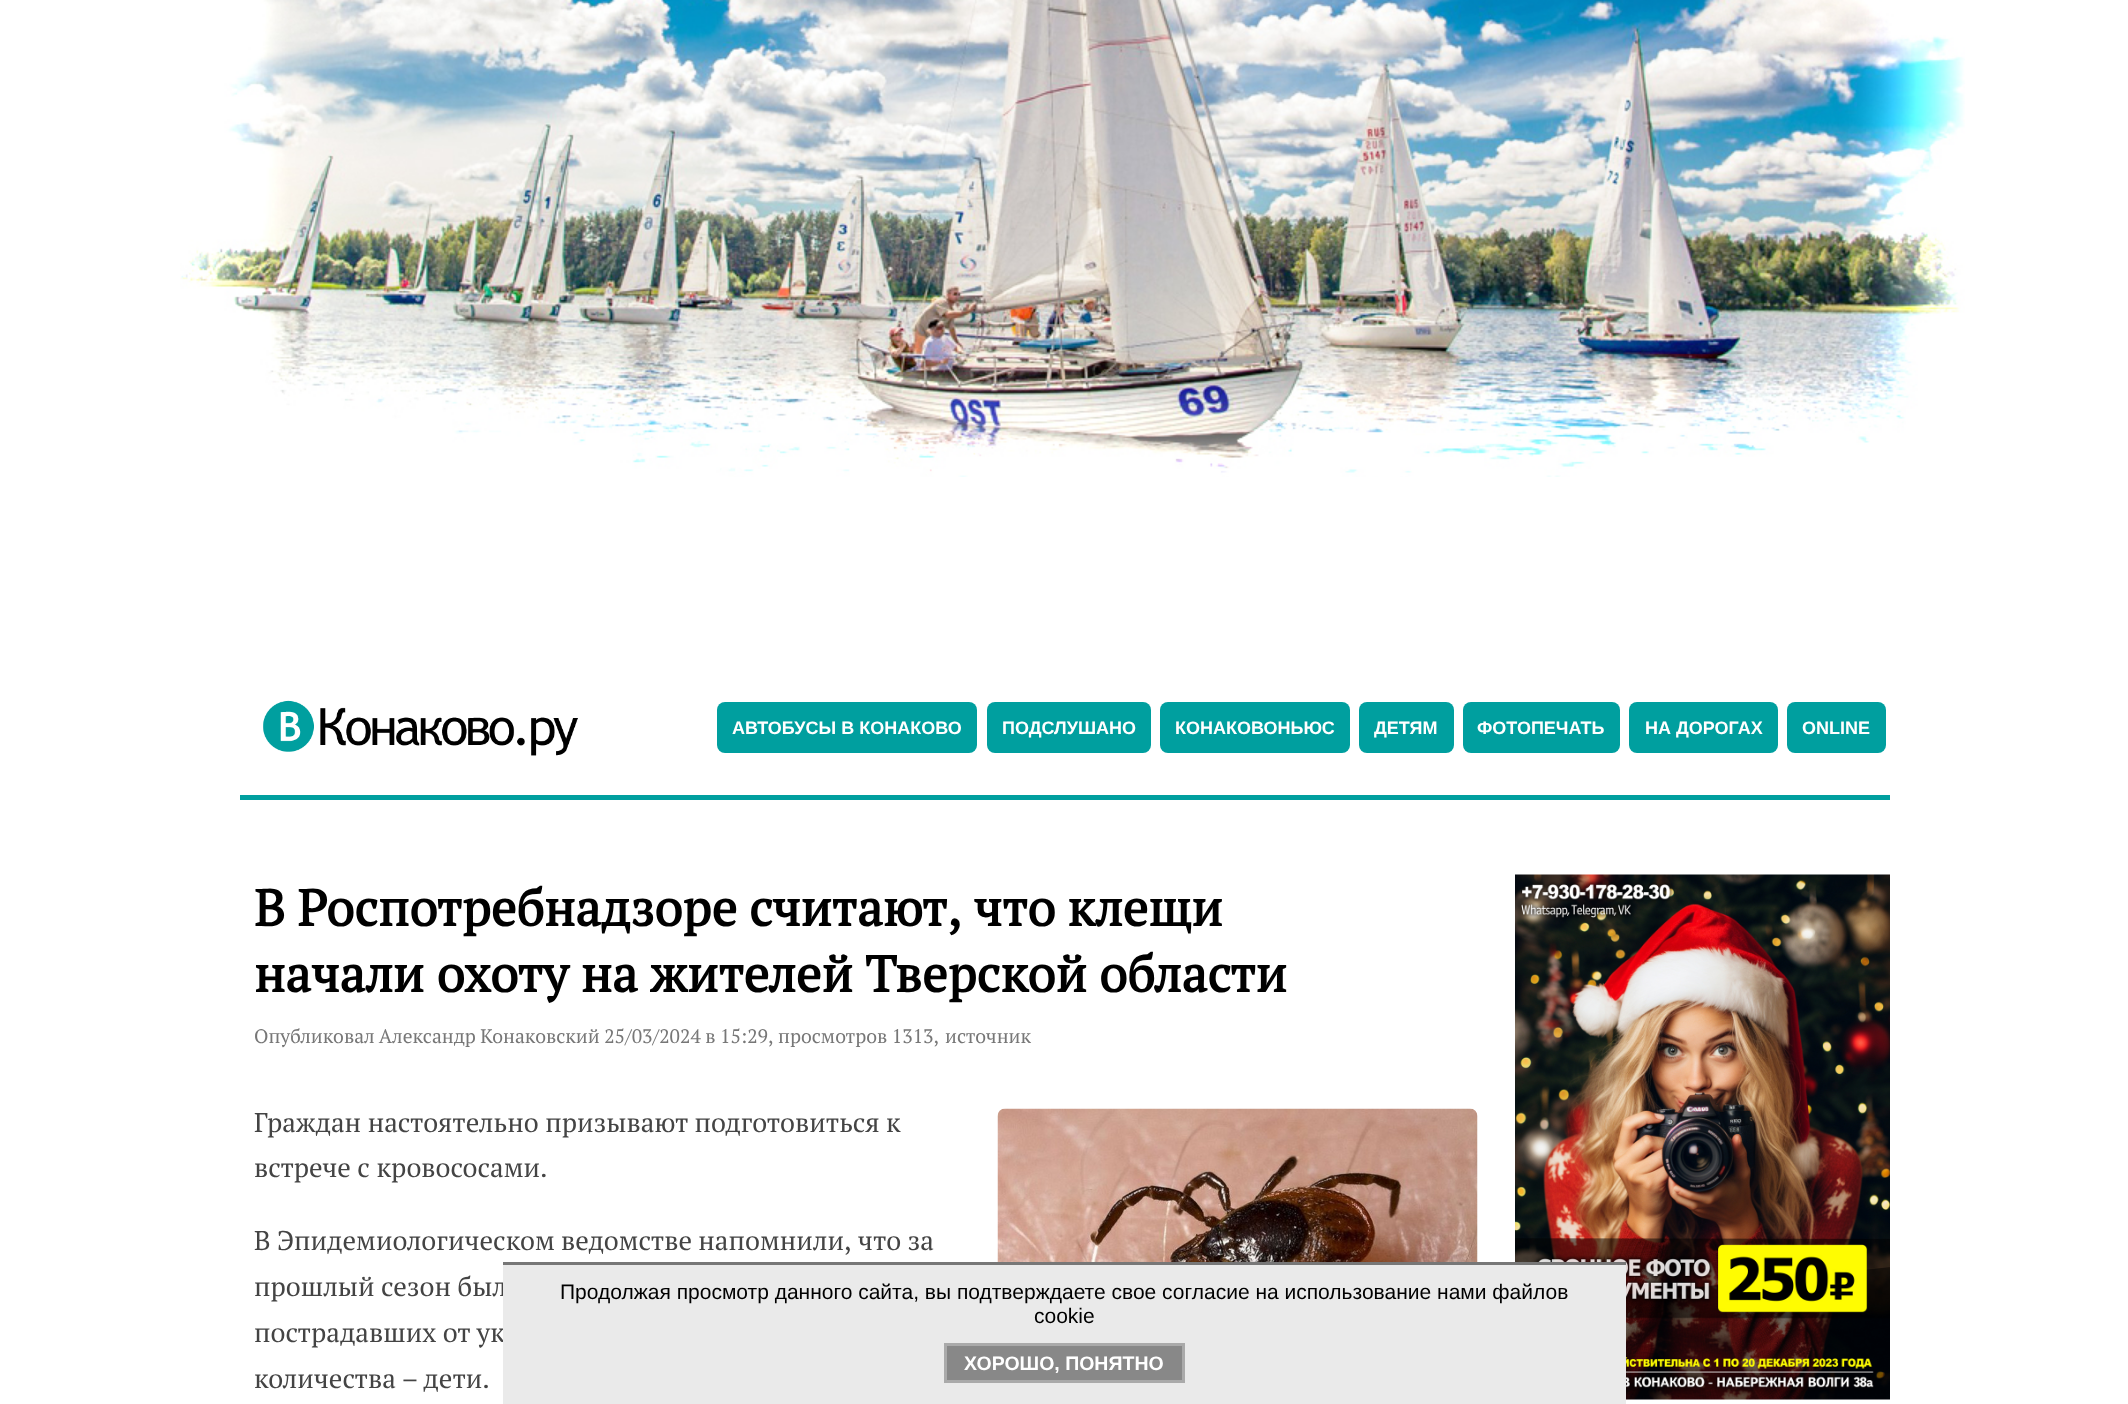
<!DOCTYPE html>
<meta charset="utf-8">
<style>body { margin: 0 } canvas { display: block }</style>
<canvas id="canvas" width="2128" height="1404"></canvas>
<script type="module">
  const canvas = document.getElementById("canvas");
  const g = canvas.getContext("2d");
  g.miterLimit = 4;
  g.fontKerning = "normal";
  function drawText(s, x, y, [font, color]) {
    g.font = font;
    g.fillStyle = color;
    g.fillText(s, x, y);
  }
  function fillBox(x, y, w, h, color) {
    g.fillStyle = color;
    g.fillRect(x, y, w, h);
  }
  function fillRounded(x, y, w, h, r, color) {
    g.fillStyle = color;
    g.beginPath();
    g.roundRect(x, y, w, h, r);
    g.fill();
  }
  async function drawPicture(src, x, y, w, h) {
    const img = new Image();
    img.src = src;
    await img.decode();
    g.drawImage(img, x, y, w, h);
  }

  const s1 = ["bold 18px Liberation Sans", "#FFFFFF"];
  const s2 = ["bold 51px PT Serif", "#000000"];
  const s3 = ["19.5px PT Serif", "#777777"];
  const s4 = ["27px PT Serif", "#444444"];
  const s5 = ["21px Liberation Sans", "#000000"];
  const s6 = ["bold 19.5px Liberation Sans", "#FFFFFF"];

  fillBox(0, 0, 2128, 1404, "#FFFFFF");
  await drawPicture("pic1.png", 180, 0, 1785, 477);
  fillBox(240, 795, 1650, 5, "#009F9F");
  await drawPicture("pic2.png", 263, 700, 315, 56);
  fillRounded(717, 702, 260, 51, 8, "#009F9F");
  drawText("АВТОБУСЫ В КОНАКОВО", 732, 734, s1);
  fillRounded(987, 702, 164, 51, 8, "#009F9F");
  drawText("ПОДСЛУШАНО", 1002, 734, s1);
  fillRounded(1160, 702, 190, 51, 8, "#009F9F");
  drawText("КОНАКОВОНЬЮС", 1175, 734, s1);
  fillRounded(1359, 702, 95, 51, 8, "#009F9F");
  drawText("ДЕТЯМ", 1374, 734, s1);
  fillRounded(1463, 702, 157, 51, 8, "#009F9F");
  drawText("ФОТОПЕЧАТЬ", 1477, 734, s1);
  fillRounded(1629, 702, 149, 51, 8, "#009F9F");
  drawText("НА ДОРОГАХ", 1645, 734, s1);
  fillRounded(1787, 702, 99, 51, 8, "#009F9F");
  drawText("ONLINE", 1802, 734, s1);
  g.wordSpacing = "-0.5px";
  drawText("В Роспотребнадзоре считают, что клещи", 254, 926, s2);
  g.wordSpacing = "0px";
  drawText("начали охоту на жителей Тверской области", 254, 992, s2);
  g.wordSpacing = "-0.25px";
  drawText("Опубликовал Александр Конаковский 25/03/2024 в 15:29, просмотров 1313,", 254, 1043, s3);
  g.wordSpacing = "0px";
  drawText("источник", 945, 1043, s3);
  drawText("Граждан настоятельно призывают подготовиться к", 254, 1132, s4);
  drawText("встрече с кровососами.", 254, 1177, s4);
  await drawPicture("pic3.png", 997, 1108, 481, 154);
  g.wordSpacing = "-0.25px";
  drawText("В Эпидемиологическом ведомстве напомнили, что за", 254, 1250, s4);
  g.wordSpacing = "0px";
  drawText("прошлый сезон был", 254, 1296, s4);
  drawText("пострадавших от ук", 254, 1342, s4);
  g.wordSpacing = "-1px";
  drawText("количества – дети.", 254, 1388, s4);
  await drawPicture("pic4.png", 1515, 874, 375, 526);
  fillBox(503, 1265, 1123, 139, "#EAEAEA");
  fillBox(503, 1262, 1123, 3, "#777777");
  g.wordSpacing = "0px";
  drawText("Продолжая просмотр данного сайта, вы подтверждаете свое согласие на использование нами файлов", 560, 1299, s5);
  drawText("cookie", 1034, 1323, s5);
  g.fillStyle = "#888888";
  g.beginPath();
  g.rect(945.5, 1344.5, 238, 37);
  g.fill();
  g.strokeStyle = "#AAAAAA";
  g.lineWidth = 3;
  g.stroke();
  drawText("ХОРОШО, ПОНЯТНО", 964, 1370, s6);
</script>
